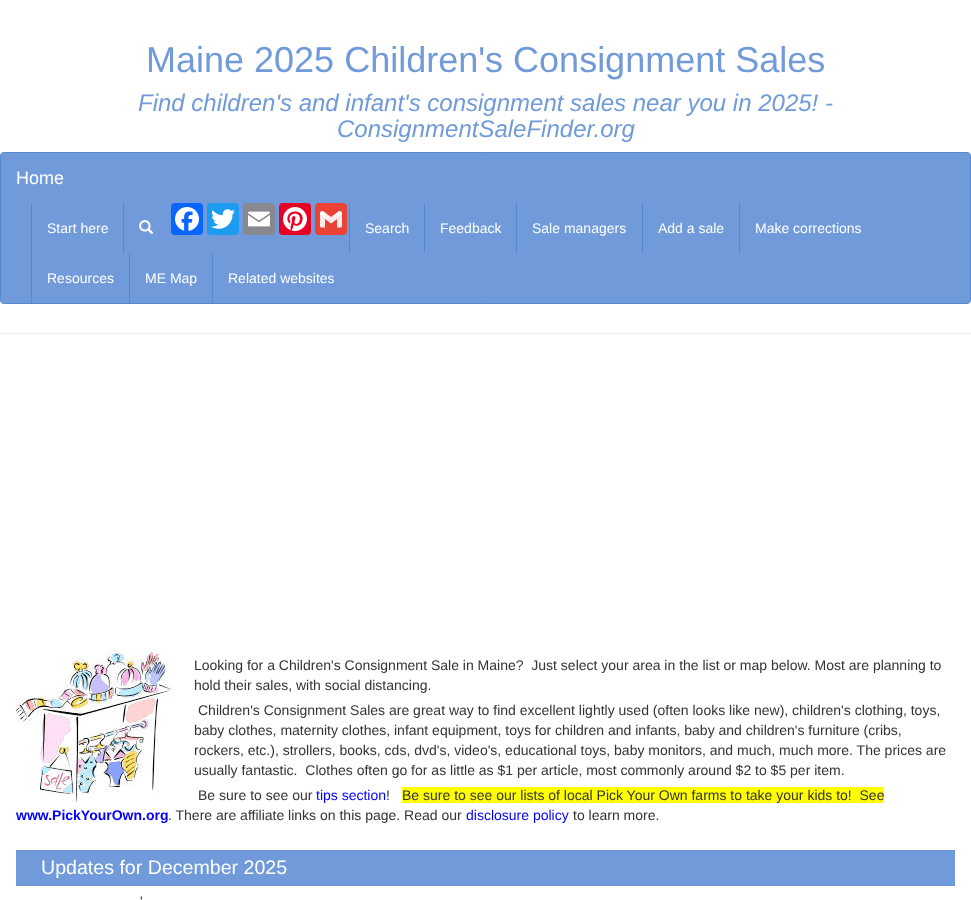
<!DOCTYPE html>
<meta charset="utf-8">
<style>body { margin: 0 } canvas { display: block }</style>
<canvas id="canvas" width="971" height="900"></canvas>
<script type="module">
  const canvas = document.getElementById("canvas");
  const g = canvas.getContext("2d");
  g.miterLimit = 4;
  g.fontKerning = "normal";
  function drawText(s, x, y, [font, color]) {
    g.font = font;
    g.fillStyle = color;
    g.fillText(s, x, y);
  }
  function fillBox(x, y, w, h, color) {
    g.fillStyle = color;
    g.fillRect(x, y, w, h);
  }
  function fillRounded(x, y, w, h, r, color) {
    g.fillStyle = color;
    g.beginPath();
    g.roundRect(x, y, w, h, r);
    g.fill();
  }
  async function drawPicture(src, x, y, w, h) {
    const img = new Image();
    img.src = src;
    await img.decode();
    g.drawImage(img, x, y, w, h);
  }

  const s1 = ["36px Liberation Sans", "#709AD9"];
  const s2 = ["italic 24px Liberation Sans", "#709AD9"];
  const s3 = ["18px Liberation Sans", "#FFFFFF"];
  const s4 = ["14px Liberation Sans", "#FFFFFF"];
  const s5 = ["14px Liberation Sans", "#333333"];
  const s6 = ["14px Liberation Sans", "#0000FF"];
  const s7 = ["bold 14px Liberation Sans", "#0000FF"];
  const s8 = ["19.6px Liberation Sans", "#FFFFFF"];

  fillBox(0, 0, 971, 900, "#FFFFFF");
  fillBox(0, 333, 971, 1, "#EEEEEE");
  drawText("Maine 2025 Children's Consignment Sales", 146, 72, s1);
  drawText("Find children's and infant's consignment sales near you in 2025! -", 138, 111, s2);
  drawText("ConsignmentSaleFinder.org", 337, 137, s2);
  g.beginPath();
  g.roundRect(0.5, 152.5, 970, 151, 3.5);
  g.fill();
  g.strokeStyle = "#5688D2";
  g.stroke();
  drawText("Home", 16, 184, s3);
  fillBox(31, 203, 1, 100, "#5688D2");
  drawText("Start here", 47, 233, s4);
  fillBox(123, 203, 1, 50, "#5688D2");
  await drawPicture("pic1.png", 139, 220, 14, 14);
  fillRounded(171, 203, 32, 32, 4, "#0866FF");
  await drawPicture("pic2.png", 175, 207, 24, 24);
  fillRounded(207, 203, 32, 32, 4, "#1D9BF0");
  await drawPicture("pic3.png", 211, 209, 24, 20);
  fillRounded(243, 203, 32, 32, 4, "#888990");
  await drawPicture("pic4.png", 248, 211, 22, 16);
  fillRounded(279, 203, 32, 32, 4, "#E60023");
  await drawPicture("pic5.png", 283, 207, 24, 24);
  fillRounded(315, 203, 32, 32, 4, "#EA4335");
  await drawPicture("pic6.png", 320, 211, 22, 17);
  fillBox(349, 203, 1, 50, "#5688D2");
  drawText("Search", 365, 233, s4);
  fillBox(424, 203, 1, 50, "#5688D2");
  drawText("Feedback", 440, 233, s4);
  fillBox(516, 203, 1, 50, "#5688D2");
  drawText("Sale managers", 532, 233, s4);
  fillBox(642, 203, 1, 50, "#5688D2");
  drawText("Add a sale", 658, 233, s4);
  fillBox(739, 203, 1, 50, "#5688D2");
  drawText("Make corrections", 755, 233, s4);
  drawText("Resources", 47, 283, s4);
  fillBox(129, 253, 1, 50, "#5688D2");
  drawText("ME Map", 145, 283, s4);
  fillBox(212, 253, 1, 50, "#5688D2");
  drawText("Related websites", 228, 283, s4);
  await drawPicture("pic7.png", 16, 650, 158, 152);
  drawText("Looking for a Children's Consignment Sale in Maine?  Just select your area in the list or map below. Most are planning to", 194, 670, s5);
  drawText("hold their sales, with social distancing.", 194, 690, s5);
  drawText("Children's Consignment Sales are great way to find excellent lightly used (often looks like new), children's clothing, toys,", 198, 715, s5);
  drawText("baby clothes, maternity clothes, infant equipment, toys for children and infants, baby and children's furniture (cribs,", 194, 735, s5);
  drawText("rockers, etc.), strollers, books, cds, dvd's, video's, educational toys, baby monitors, and much, much more. The prices are", 194, 755, s5);
  drawText("usually fantastic.  Clothes often go for as little as $1 per article, most commonly around $2 to $5 per item.", 194, 775, s5);
  drawText("Be sure to see our", 198, 800, s5);
  drawText("tips section", 316, 800, s6);
  drawText("!", 386, 800, s5);
  fillBox(402, 787, 482, 16, "#FFFF00");
  drawText("Be sure to see our lists of local Pick Your Own farms to take your kids to!  See", 402, 800, s5);
  drawText("www.PickYourOwn.org", 16, 820, s7);
  drawText(". There are affiliate links on this page. Read our", 168, 820, s5);
  drawText("disclosure policy", 466, 820, s6);
  drawText("to learn more.", 573, 820, s5);
  fillBox(16, 850, 939, 36, "#709AD9");
  drawText("Updates for December 2025", 41, 874, s8);
  drawText("'", 140, 906, s5);
</script>
